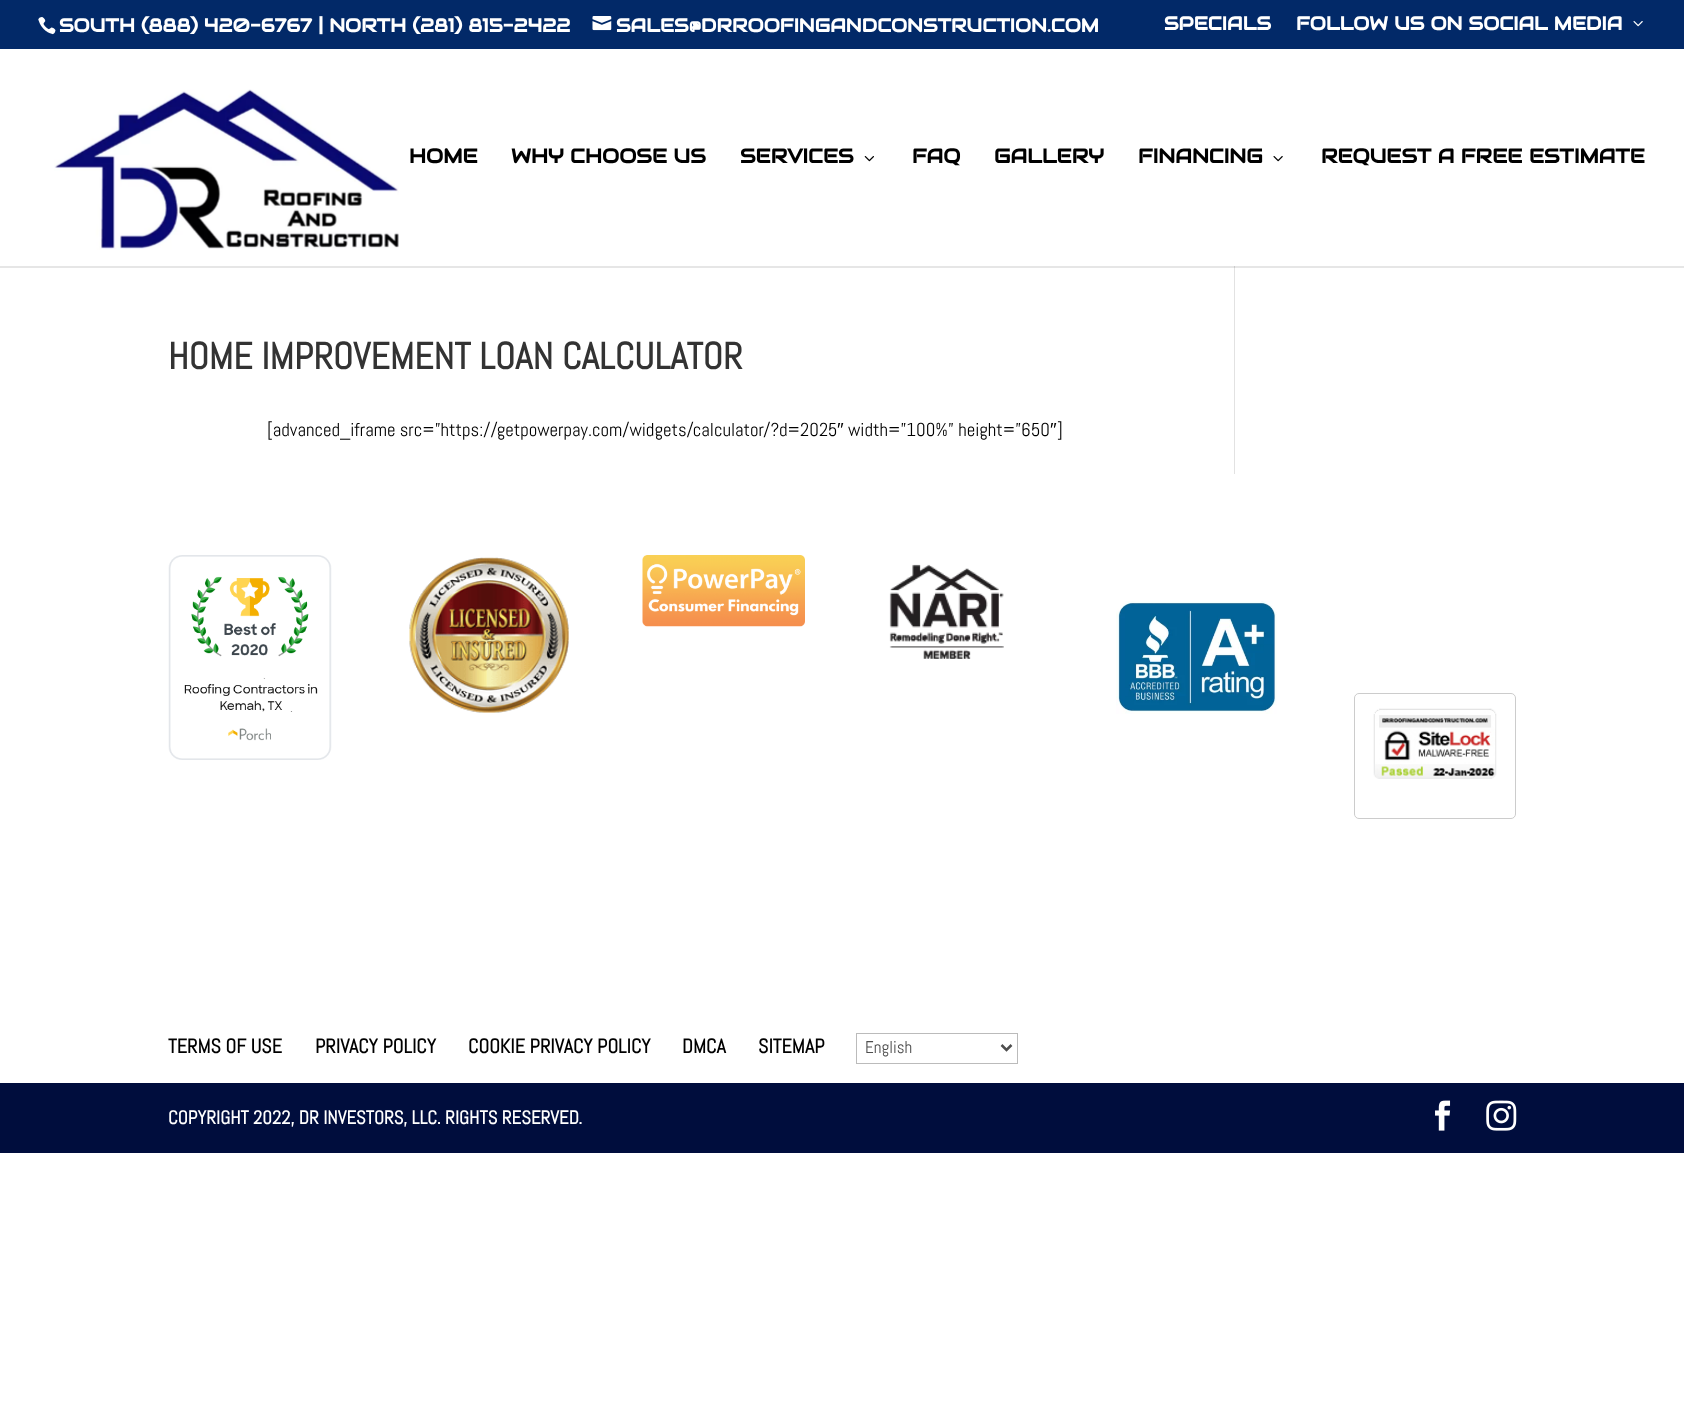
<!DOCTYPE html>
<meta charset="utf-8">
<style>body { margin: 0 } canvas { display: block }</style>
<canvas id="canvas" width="1684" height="1412"></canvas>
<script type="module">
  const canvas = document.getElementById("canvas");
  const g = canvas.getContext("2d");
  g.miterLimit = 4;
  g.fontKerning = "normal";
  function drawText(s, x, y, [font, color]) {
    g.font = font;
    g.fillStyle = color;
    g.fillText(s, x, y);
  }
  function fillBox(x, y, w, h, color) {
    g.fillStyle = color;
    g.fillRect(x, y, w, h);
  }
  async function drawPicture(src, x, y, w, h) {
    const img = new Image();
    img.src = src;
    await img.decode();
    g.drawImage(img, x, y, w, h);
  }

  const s1 = ["bold 18.75px Audiowide", "#FFFFFF"];
  const s2 = ["bold 20px Audiowide", "#000000"];
  const s3 = ["bold 37.5px Abel", "#333333"];
  const s4 = ["18.75px Abel", "#000000"];
  const s5 = ["18.75px Liberation Sans", "#000000"];
  const s6 = ["bold 20px Abel", "#000000"];
  const s7 = ["17px Abel", "#4E4E4E"];
  const s8 = ["bold 18.75px Abel", "#FFFFFF"];

  fillBox(0, 0, 1684, 1412, "#FFFFFF");
  fillBox(0, 266, 1684, 2, "#E6E6E6");
  fillBox(0, 0, 1684, 49, "#022968");
  await drawPicture("pic1.png", 38, 17, 18, 18);
  drawText("SOUTH (888) 420-6767 | NORTH (281) 815-2422", 59, 32, s1);
  await drawPicture("pic2.png", 592, 16, 20, 15);
  drawText("SALES@DRROOFINGANDCONSTRUCTION.COM", 616, 32, s1);
  drawText("SPECIALS", 1164, 30, s1);
  drawText("FOLLOW US ON SOCIAL MEDIA", 1296, 30, s1);
  await drawPicture("pic3.png", 1633, 21, 10, 6);
  await drawPicture("pic4.png", 54, 89, 345, 161);
  drawText("HOME", 409, 163, s2);
  drawText("WHY CHOOSE US", 511, 163, s2);
  drawText("SERVICES", 740, 163, s2);
  await drawPicture("pic5.png", 864, 156, 10, 6);
  drawText("FAQ", 912, 163, s2);
  drawText("GALLERY", 994, 163, s2);
  drawText("FINANCING", 1138, 163, s2);
  await drawPicture("pic6.png", 1273, 156, 10, 6);
  drawText("REQUEST A FREE ESTIMATE", 1321, 163, s2);
  drawText("HOME IMPROVEMENT LOAN CALCULATOR", 168, 369, s3);
  drawText("[advanced_iframe src=”https://getpowerpay.com/widgets/calculator/?d=2025", 267, 436, s4);
  drawText("″", 837, 436, s5);
  drawText("width=”100%” height=”650", 848, 436, s4);
  drawText("″", 1050, 436, s5);
  drawText("]", 1057, 436, s4);
  fillBox(1234, 266, 1, 208, "#E2E2E2");
  fillBox(1234, 266, 1, 2, "#CBCBCB");
  await drawPicture("pic7.png", 168, 555, 164, 205);
  await drawPicture("pic8.png", 409, 557, 160, 156);
  await drawPicture("pic9.png", 642, 555, 163, 72);
  await drawPicture("pic10.png", 889, 564, 115, 95);
  await drawPicture("pic11.png", 1116, 601, 161, 113);
  g.beginPath();
  g.roundRect(1354.5, 693.5, 161, 125, 4.5);
  g.strokeStyle = "#CCCCCC";
  g.stroke();
  await drawPicture("pic12.png", 1373, 708, 124, 71);
  drawText("TERMS OF USE", 168, 1053, s6);
  drawText("PRIVACY POLICY", 315, 1053, s6);
  drawText("COOKIE PRIVACY POLICY", 468, 1053, s6);
  drawText("DMCA", 682, 1053, s6);
  drawText("SITEMAP", 758, 1053, s6);
  g.strokeStyle = "#BBBBBB";
  g.strokeRect(856.5, 1033.5, 161, 30);
  g.beginPath();
  g.moveTo(1001.5, 1045);
  g.lineTo(1006.5, 1050);
  g.lineTo(1011.5, 1045);
  g.strokeStyle = "#4E4E4E";
  g.lineWidth = 2.5;
  g.stroke();
  drawText("English", 865, 1053, s7);
  fillBox(0, 1083, 1684, 70, "#000D3D");
  drawText("COPYRIGHT 2022, DR INVESTORS, LLC. RIGHTS RESERVED.", 168, 1124, s8);
  await drawPicture("pic13.png", 1435, 1100, 16, 31);
  await drawPicture("pic14.png", 1486, 1100, 31, 31);
</script>
